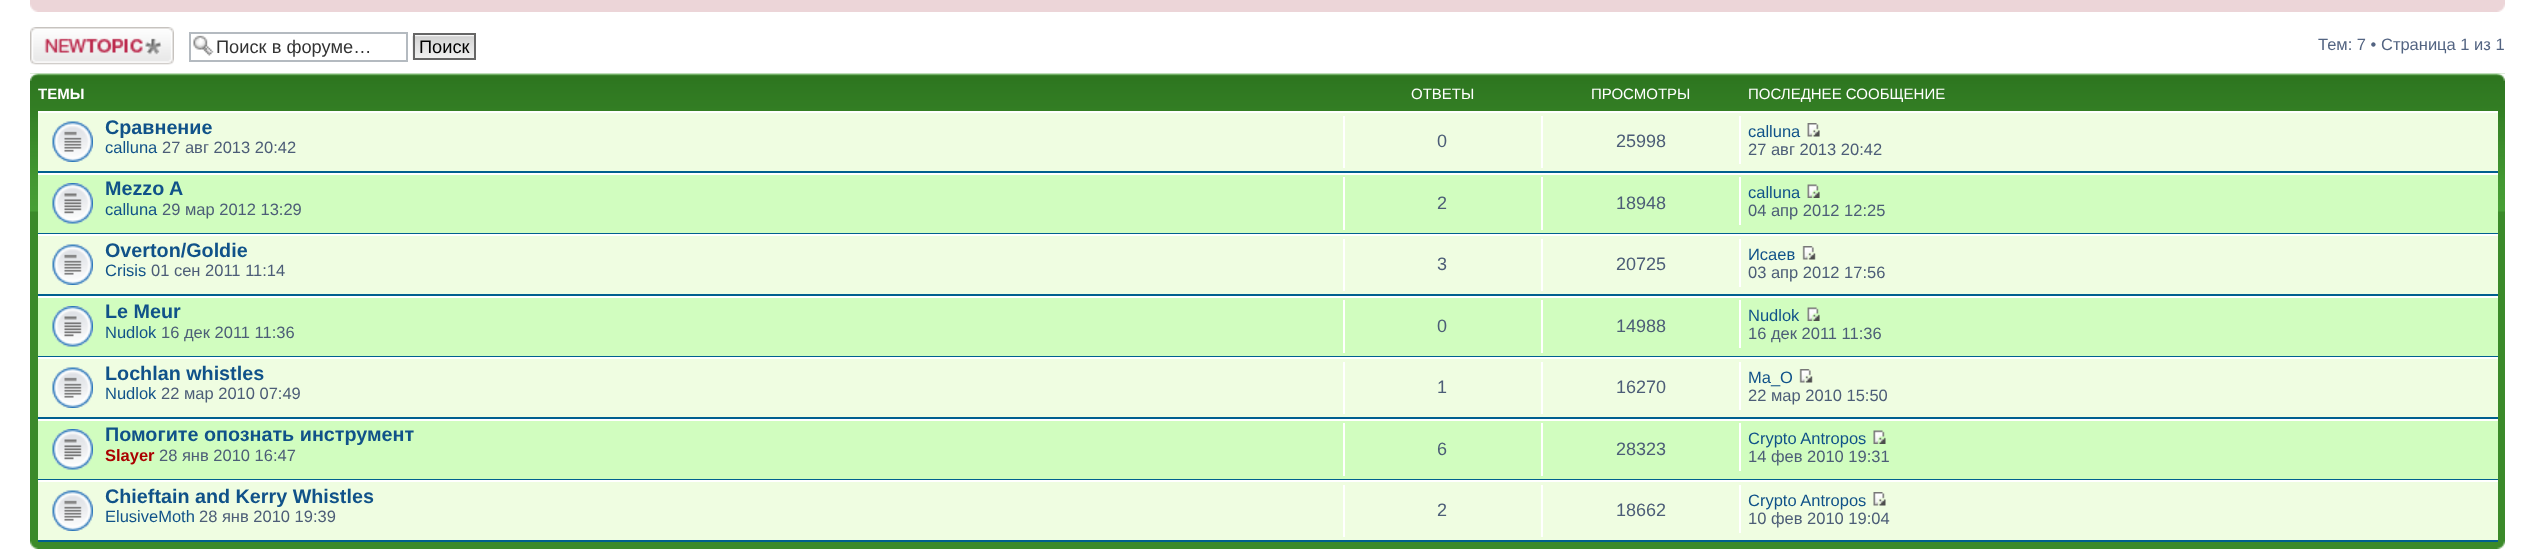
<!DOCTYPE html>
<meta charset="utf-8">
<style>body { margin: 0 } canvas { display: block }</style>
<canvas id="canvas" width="2534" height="552"></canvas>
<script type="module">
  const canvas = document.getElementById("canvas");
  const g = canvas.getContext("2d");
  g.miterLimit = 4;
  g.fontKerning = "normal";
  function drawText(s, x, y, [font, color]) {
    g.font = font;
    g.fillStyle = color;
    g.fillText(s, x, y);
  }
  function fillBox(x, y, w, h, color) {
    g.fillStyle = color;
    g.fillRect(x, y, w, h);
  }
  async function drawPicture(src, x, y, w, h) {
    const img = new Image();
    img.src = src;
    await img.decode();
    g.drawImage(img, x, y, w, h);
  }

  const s1 = ["18.25px Liberation Sans", "#333333"];
  const s2 = ["18.25px Liberation Sans", "#000000"];
  const s3 = ["16.5px Liberation Sans", "#536482"];
  const s4 = ["bold 15px Liberation Sans", "#FFFFFF"];
  const s5 = ["15px Liberation Sans", "#FFFFFF"];
  const s6 = ["bold 19.75px Liberation Sans", "#105289"];
  const s7 = ["16.5px Liberation Sans", "#105289"];
  const s8 = ["16.5px Liberation Sans", "#4C5D77"];
  const s9 = ["18px Liberation Sans", "#4C5D77"];
  const s10 = ["bold 16.5px Liberation Sans", "#AA0000"];

  fillBox(0, 0, 2534, 552, "#FFFFFF");
  fillBox(30, 0, 2475, 12, "#ECD5D8");
  await drawPicture("pic1.png", 30, 4, 8, 8);
  await drawPicture("pic2.png", 2497, 4, 8, 8);
  await drawPicture("pic3.png", 30, 27, 144, 38);
  await drawPicture("pic4.png", 193, 35, 21, 21);
  g.strokeStyle = "#B4BAC0";
  g.lineWidth = 2;
  g.strokeRect(190, 33, 217, 28);
  drawText("Поиск в форуме…", 216, 53, s1);
  await drawPicture("pic5.png", 412, 35, 62, 25);
  g.strokeStyle = "#666666";
  g.strokeRect(414, 34, 61, 25);
  drawText("Поиск", 419, 53, s2);
  drawText("Тем: 7 • Страница 1 из 1", 2318, 50, s3);
  fillBox(30, 211, 2475, 338, "#3B8A2A");
  await drawPicture("pic6.png", 30, 73, 2475, 139);
  await drawPicture("pic7.png", 30, 73, 8, 8);
  await drawPicture("pic8.png", 2497, 73, 8, 8);
  g.save();
  g.beginPath();
  g.rect(38, 81, 2460, 30);
  g.clip();
  drawText("ТЕМЫ", 38, 99, s4);
  g.restore();
  drawText("ОТВЕТЫ", 1411, 99, s5);
  drawText("ПРОСМОТРЫ", 1591, 99, s5);
  drawText("ПОСЛЕДНЕЕ СООБЩЕНИЕ", 1748, 99, s5);
  fillBox(38, 113, 2460, 58, "#EFFDE1");
  fillBox(38, 111, 2460, 2, "#FFFFFF");
  fillBox(38, 171, 2460, 2, "#00608F");
  await drawPicture("pic9.png", 52, 121, 41, 41);
  drawText("Сравнение", 105, 134, s6);
  drawText("calluna", 105, 153, s7);
  drawText("27 авг 2013 20:42", 162, 153, s8);
  fillBox(1343, 116, 2, 52, "#FFFFFF");
  drawText("0", 1437, 147, s9);
  fillBox(1541, 116, 2, 52, "#FFFFFF");
  drawText("25998", 1616, 147, s9);
  fillBox(1739, 116, 2, 48, "#FFFFFF");
  drawText("calluna", 1748, 137, s7);
  await drawPicture("pic10.png", 1807, 123, 13, 14);
  drawText("27 авг 2013 20:42", 1748, 155, s8);
  fillBox(38, 175, 2460, 58, "#D1FDBF");
  fillBox(38, 173, 2460, 2, "#FFFFFF");
  fillBox(38, 233, 2460, 1, "#00608F");
  await drawPicture("pic11.png", 52, 183, 41, 41);
  drawText("Mezzo A", 105, 195, s6);
  drawText("calluna", 105, 215, s7);
  drawText("29 мар 2012 13:29", 162, 215, s8);
  fillBox(1343, 177, 2, 53, "#FFFFFF");
  drawText("2", 1437, 209, s9);
  fillBox(1541, 177, 2, 53, "#FFFFFF");
  drawText("18948", 1616, 209, s9);
  fillBox(1739, 177, 2, 48, "#FFFFFF");
  drawText("calluna", 1748, 198, s7);
  await drawPicture("pic12.png", 1807, 184, 13, 14);
  drawText("04 апр 2012 12:25", 1748, 216, s8);
  fillBox(38, 236, 2460, 58, "#EFFDE1");
  fillBox(38, 234, 2460, 2, "#FFFFFF");
  fillBox(38, 294, 2460, 2, "#00608F");
  await drawPicture("pic9.png", 52, 244, 41, 41);
  drawText("Overton/Goldie", 105, 257, s6);
  drawText("Crisis", 105, 276, s7);
  drawText("01 сен 2011 11:14", 151, 276, s8);
  fillBox(1343, 239, 2, 52, "#FFFFFF");
  drawText("3", 1437, 270, s9);
  fillBox(1541, 239, 2, 52, "#FFFFFF");
  drawText("20725", 1616, 270, s9);
  fillBox(1739, 239, 2, 48, "#FFFFFF");
  drawText("Исаев", 1748, 260, s7);
  await drawPicture("pic13.png", 1802, 246, 14, 14);
  drawText("03 апр 2012 17:56", 1748, 278, s8);
  fillBox(38, 298, 2460, 58, "#D1FDBF");
  fillBox(38, 296, 2460, 2, "#FFFFFF");
  fillBox(38, 356, 2460, 1, "#00608F");
  await drawPicture("pic11.png", 52, 306, 41, 41);
  drawText("Le Meur", 105, 318, s6);
  drawText("Nudlok", 105, 338, s7);
  drawText("16 дек 2011 11:36", 161, 338, s8);
  fillBox(1343, 300, 2, 53, "#FFFFFF");
  drawText("0", 1437, 332, s9);
  fillBox(1541, 300, 2, 53, "#FFFFFF");
  drawText("14988", 1616, 332, s9);
  fillBox(1739, 300, 2, 48, "#FFFFFF");
  drawText("Nudlok", 1748, 321, s7);
  await drawPicture("pic12.png", 1807, 307, 13, 14);
  drawText("16 дек 2011 11:36", 1748, 339, s8);
  fillBox(38, 359, 2460, 58, "#EFFDE1");
  fillBox(38, 357, 2460, 2, "#FFFFFF");
  fillBox(38, 417, 2460, 2, "#00608F");
  await drawPicture("pic9.png", 52, 367, 41, 41);
  drawText("Lochlan whistles", 105, 380, s6);
  drawText("Nudlok", 105, 399, s7);
  drawText("22 мар 2010 07:49", 161, 399, s8);
  fillBox(1343, 362, 2, 52, "#FFFFFF");
  drawText("1", 1437, 393, s9);
  fillBox(1541, 362, 2, 52, "#FFFFFF");
  drawText("16270", 1616, 393, s9);
  fillBox(1739, 362, 2, 48, "#FFFFFF");
  drawText("Ma_O", 1748, 383, s7);
  await drawPicture("pic13.png", 1799, 369, 14, 14);
  drawText("22 мар 2010 15:50", 1748, 401, s8);
  fillBox(38, 421, 2460, 58, "#D1FDBF");
  fillBox(38, 419, 2460, 2, "#FFFFFF");
  fillBox(38, 479, 2460, 1, "#00608F");
  await drawPicture("pic11.png", 52, 429, 41, 41);
  drawText("Помогите опознать инструмент", 105, 441, s6);
  drawText("Slayer", 105, 461, s10);
  drawText("28 янв 2010 16:47", 159, 461, s8);
  fillBox(1343, 423, 2, 53, "#FFFFFF");
  drawText("6", 1437, 455, s9);
  fillBox(1541, 423, 2, 53, "#FFFFFF");
  drawText("28323", 1616, 455, s9);
  fillBox(1739, 423, 2, 48, "#FFFFFF");
  drawText("Crypto Antropos", 1748, 444, s7);
  await drawPicture("pic14.png", 1873, 430, 13, 14);
  drawText("14 фев 2010 19:31", 1748, 462, s8);
  fillBox(38, 482, 2460, 58, "#EFFDE1");
  fillBox(38, 480, 2460, 2, "#FFFFFF");
  fillBox(38, 540, 2460, 2, "#00608F");
  await drawPicture("pic9.png", 52, 490, 41, 41);
  drawText("Chieftain and Kerry Whistles", 105, 503, s6);
  drawText("ElusiveMoth", 105, 522, s7);
  drawText("28 янв 2010 19:39", 199, 522, s8);
  fillBox(1343, 485, 2, 52, "#FFFFFF");
  drawText("2", 1437, 516, s9);
  fillBox(1541, 485, 2, 52, "#FFFFFF");
  drawText("18662", 1616, 516, s9);
  fillBox(1739, 485, 2, 48, "#FFFFFF");
  drawText("Crypto Antropos", 1748, 506, s7);
  await drawPicture("pic15.png", 1873, 492, 13, 14);
  drawText("10 фев 2010 19:04", 1748, 524, s8);
  await drawPicture("pic16.png", 30, 541, 8, 8);
  await drawPicture("pic17.png", 2497, 541, 8, 8);
</script>
